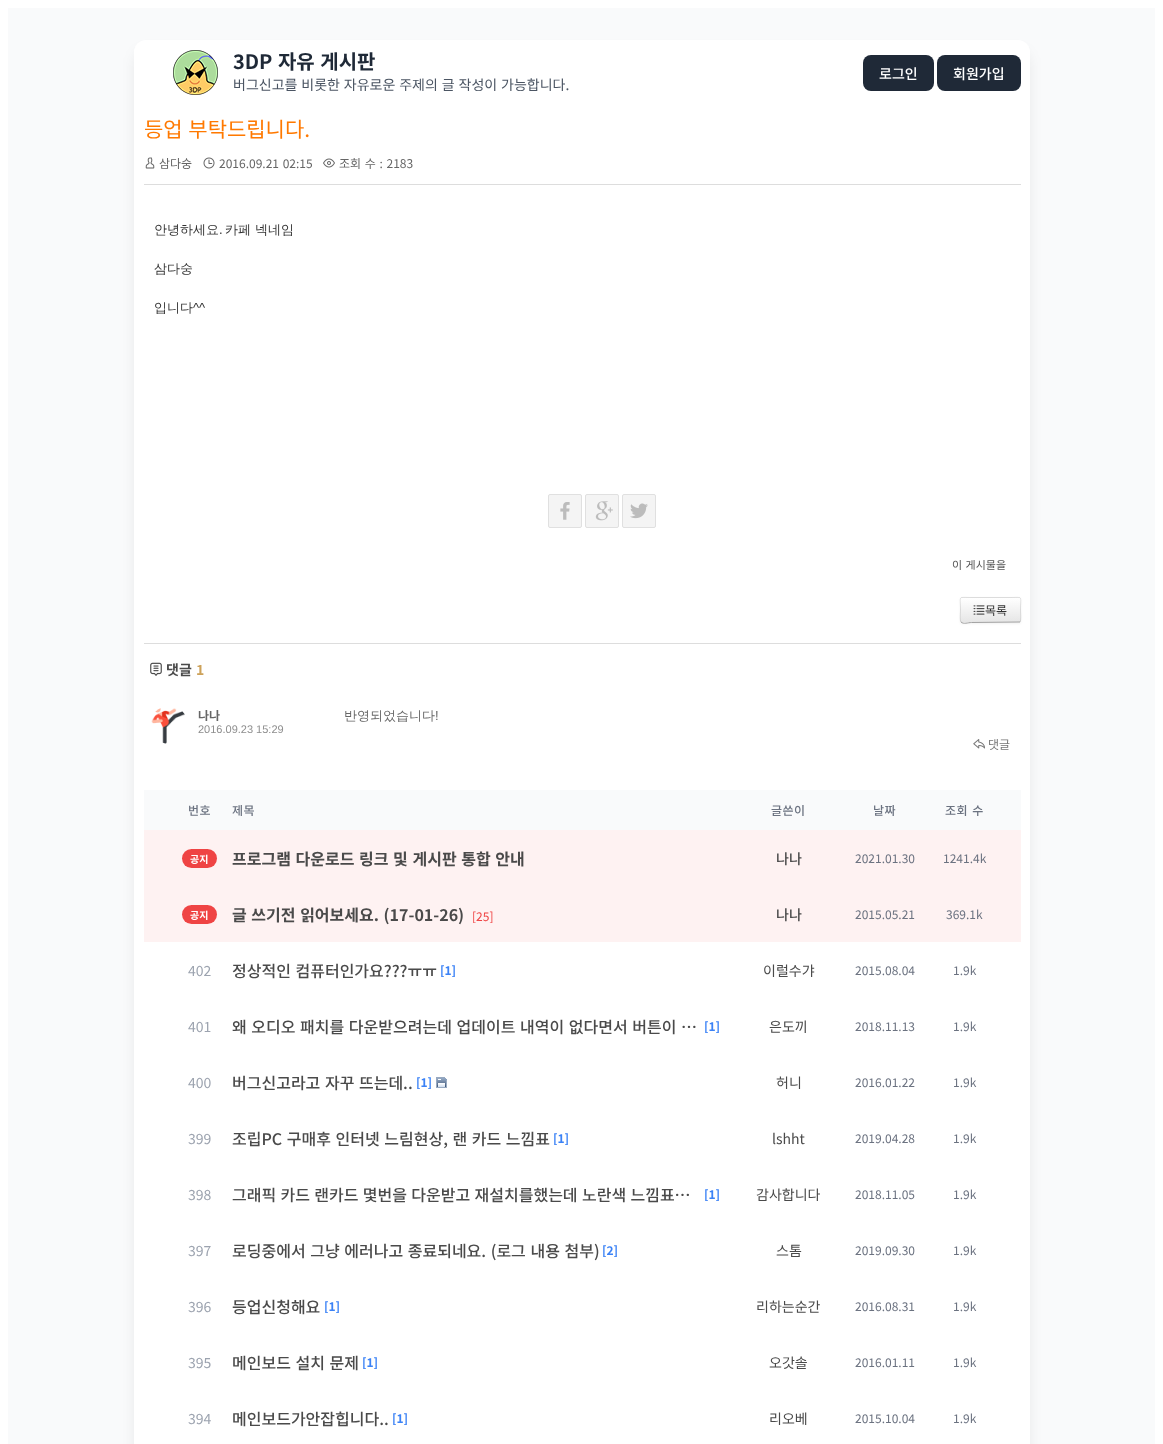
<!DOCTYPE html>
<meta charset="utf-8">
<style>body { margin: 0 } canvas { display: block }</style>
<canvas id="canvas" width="1163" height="1444"></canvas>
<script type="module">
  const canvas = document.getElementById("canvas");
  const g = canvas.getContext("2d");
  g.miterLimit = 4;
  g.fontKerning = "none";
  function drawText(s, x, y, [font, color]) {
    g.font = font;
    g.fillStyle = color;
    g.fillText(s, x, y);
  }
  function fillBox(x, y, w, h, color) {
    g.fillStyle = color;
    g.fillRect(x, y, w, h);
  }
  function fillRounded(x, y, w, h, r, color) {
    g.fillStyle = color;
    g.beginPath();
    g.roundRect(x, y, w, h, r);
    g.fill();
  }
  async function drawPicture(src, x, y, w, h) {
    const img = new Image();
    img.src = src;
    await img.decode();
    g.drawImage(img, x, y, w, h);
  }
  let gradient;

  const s1 = ["bold 20px Noto Sans KR", "#1F2937"];
  const s2 = ["14px Noto Sans KR", "#4B5563"];
  const s3 = ["500 14px Noto Sans KR", "#FFFFFF"];
  const s4 = ["21px Noto Sans KR", "#FF7900"];
  const s5 = ["12px Noto Sans KR", "#666666"];
  const s6 = ["500 13px WenQuanYi Zen Hei", "#333333"];
  const s7 = ["13px Liberation Sans", "#333333"];
  const s8 = ["11px Noto Sans KR", "#555555"];
  const s9 = ["12px Noto Sans KR", "#333333"];
  const s10 = ["bold 14px Noto Sans KR", "#4A4A4A"];
  const s11 = ["bold 14px Noto Sans KR", "#CDA25A"];
  const s12 = ["bold 12px Noto Sans KR", "#666666"];
  const s13 = ["11px Liberation Sans", "#8E8E8E"];
  const s14 = ["500 13px WenQuanYi Zen Hei", "#666666"];
  const s15 = ["13px Liberation Sans", "#666666"];
  const s16 = ["12px Noto Sans KR", "#767676"];
  const s17 = ["500 12px Noto Sans KR", "#6B7280"];
  const s18 = ["bold 10px Noto Sans KR", "#FFFFFF"];
  const s19 = ["bold 16px Noto Sans KR", "#4A4A4A"];
  const s20 = ["500 14px Noto Sans KR", "#4A4A4A"];
  const s21 = ["12px Noto Sans KR", "#6B7280"];
  const s22 = ["12px Noto Sans KR", "#EF4444"];
  const s23 = ["14px Noto Sans KR", "#9CA3AF"];
  const s24 = ["500 16px Noto Sans KR", "#4A4A4A"];
  const s25 = ["bold 12px Noto Sans KR", "#3B82F6"];
  const s26 = ["14px Noto Sans KR", "#4A4A4A"];

  fillBox(0, 0, 1163, 1444, "#FFFFFF");
  fillBox(8, 8, 1147, 1436, "#F9FAFB");
  g.fillStyle = "rgba(0, 0, 0, 0.1)";
  g.filter = "blur(7.5px)";
  g.beginPath();
  g.roundRect(137, 53, 890, 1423, 9);
  g.fill();
  g.filter = "none";
  fillRounded(134, 40, 896, 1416, 12, "#FFFFFF");
  await drawPicture("pic1.png", 173, 50, 45, 45);
  g.wordSpacing = "1px";
  drawText("3DP 자유 게시판", 233, 69, s1);
  g.wordSpacing = "0.75px";
  drawText("버그신고를 비롯한 자유로운 주제의 글 작성이 가능합니다.", 233, 90, s2);
  fillRounded(863, 55, 71, 36, 8, "#1F2937");
  g.wordSpacing = "0px";
  drawText("로그인", 879, 79, s3);
  fillRounded(937, 55, 84, 36, 8, "#1F2937");
  drawText("회원가입", 953, 79, s3);
  g.wordSpacing = "1px";
  drawText("등업 부탁드립니다.", 144, 137, s4);
  fillBox(144, 184, 877, 1, "#DDDDDD");
  await drawPicture("pic2.png", 145, 157, 10, 12);
  g.wordSpacing = "0px";
  drawText("삼다숭", 159, 168, s5);
  await drawPicture("pic3.png", 203, 157, 12, 12);
  g.wordSpacing = "1px";
  drawText("2016.09.21 02:15", 219, 168, s5);
  await drawPicture("pic4.png", 323, 158, 12, 10);
  drawText("조회 수 : 2183", 339, 168, s5);
  g.wordSpacing = "0px";
  drawText("안녕하세요", 154, 234, s6);
  drawText(".", 219, 234, s7);
  drawText("카페 넥네임", 225, 234, s6);
  drawText("삼다숭", 154, 273, s6);
  drawText("입니다", 154, 312, s6);
  drawText("^^", 193, 312, s7);
  g.fillStyle = "#F4F4F4";
  g.beginPath();
  g.roundRect(548.5, 494.5, 33, 33, 1.5);
  g.fill();
  g.strokeStyle = "#E0E0E0";
  g.stroke();
  await drawPicture("pic5.png", 560, 502, 10, 18);
  g.beginPath();
  g.roundRect(585.5, 494.5, 33, 33, 1.5);
  g.fill();
  g.stroke();
  await drawPicture("pic6.png", 595, 501, 18, 20);
  g.beginPath();
  g.roundRect(622.5, 494.5, 33, 33, 1.5);
  g.fill();
  g.stroke();
  await drawPicture("pic7.png", 630, 503, 18, 16);
  g.wordSpacing = "1px";
  drawText("이 게시물을", 952, 569, s8);
  g.fillStyle = "rgba(0, 0, 0, 0.05)";
  g.filter = "blur(1px)";
  g.beginPath();
  g.roundRect(960, 598, 61, 26, 2);
  g.fill();
  g.filter = "none";
  fillRounded(960, 597, 61, 26, 2, "#F5F5F5");
  g.save();
  g.beginPath();
  g.roundRect(960, 597, 61, 26, 2);
  g.clip();
  gradient = g.createLinearGradient(991, 598, 991, 622);
  gradient.addColorStop(0, "#FFFFFF");
  gradient.addColorStop(1, "#E6E6E6");
  g.fillStyle = gradient;
  g.fillRect(960, 598, 61, 24);
  g.restore();
  g.beginPath();
  g.moveTo(1020, 622);
  g.lineTo(971.5, 622.5);
  g.bezierCurveTo(968, 622.5, 963.5, 624.5, 961, 622);
  g.strokeStyle = "#A2A2A2";
  g.stroke();
  g.beginPath();
  g.moveTo(961, 622);
  g.bezierCurveTo(959.5, 620.5, 960.5, 612, 960.5, 610);
  g.bezierCurveTo(960.5, 595, 957.5, 597.5, 971.5, 597.5);
  g.lineTo(1009.5, 597.5);
  g.bezierCurveTo(1023.5, 597.5, 1020.5, 595, 1020.5, 610);
  g.bezierCurveTo(1020.5, 612, 1021.5, 620.5, 1020, 622);
  g.strokeStyle = "rgba(0, 0, 0, 0.1)";
  g.stroke();
  await drawPicture("pic8.png", 973, 605, 12, 10);
  g.wordSpacing = "0px";
  drawText("목록", 985, 615, s9);
  fillBox(144, 643, 877, 1, "#DDDDDD");
  await drawPicture("pic9.png", 150, 662, 12, 14);
  drawText("댓글", 166, 675, s10);
  drawText("1", 196, 675, s11);
  await drawPicture("pic10.png", 151, 708, 34, 36);
  drawText("나나", 198, 720, s12);
  drawText("2016.09.23 15:29", 198, 733, s13);
  drawText("반영되었습니다", 344, 720, s14);
  drawText("!", 435, 720, s15);
  await drawPicture("pic11.png", 973, 739, 12, 10);
  drawText("댓글", 988, 749, s16);
  fillBox(144, 790, 877, 40, "#F9FAFB");
  g.letterSpacing = "0.5px";
  drawText("번호", 188, 815, s17);
  drawText("제목", 232, 815, s17);
  drawText("글쓴이", 771, 815, s17);
  drawText("날짜", 873, 815, s17);
  g.wordSpacing = "1px";
  drawText("조회 수", 945, 815, s17);
  fillBox(144, 830, 877, 112, "#FEF2F2");
  fillRounded(182, 849, 35, 19, 9.5, "#EF4444");
  g.letterSpacing = "0px";
  g.wordSpacing = "0px";
  drawText("공지", 190, 863, s18);
  g.wordSpacing = "1px";
  drawText("프로그램 다운로드 링크 및 게시판 통합 안내", 232, 865, s19);
  g.wordSpacing = "0px";
  drawText("나나", 776, 864, s20);
  drawText("2021.01.30", 855, 863, s21);
  drawText("1241.4k", 943, 863, s21);
  fillRounded(182, 905, 35, 19, 9.5, "#EF4444");
  drawText("공지", 190, 919, s18);
  g.wordSpacing = "1px";
  drawText("글 쓰기전 읽어보세요. (17-01-26)", 232, 921, s19);
  g.wordSpacing = "0px";
  drawText("[25]", 472, 921, s22);
  drawText("나나", 776, 920, s20);
  drawText("2015.05.21", 855, 919, s21);
  drawText("369.1k", 946, 919, s21);
  drawText("402", 188, 976, s23);
  g.wordSpacing = "1px";
  drawText("정상적인 컴퓨터인가요???ㅠㅠ", 232, 977, s24);
  g.wordSpacing = "0px";
  drawText("[1]", 440, 975, s25);
  drawText("이럴수갸", 763, 976, s26);
  drawText("2015.08.04", 855, 975, s21);
  drawText("1.9k", 953, 975, s21);
  drawText("401", 188, 1032, s23);
  g.wordSpacing = "1px";
  drawText("왜 오디오 패치를 다운받으려는데 업데이트 내역이 없다면서 버튼이 …", 232, 1033, s24);
  g.wordSpacing = "0px";
  drawText("[1]", 704, 1031, s25);
  drawText("은도끼", 769, 1032, s26);
  drawText("2018.11.13", 855, 1031, s21);
  drawText("1.9k", 953, 1031, s21);
  drawText("400", 188, 1088, s23);
  g.wordSpacing = "1px";
  drawText("버그신고라고 자꾸 뜨는데..", 232, 1089, s24);
  g.wordSpacing = "0px";
  drawText("[1]", 416, 1087, s25);
  await drawPicture("pic12.png", 436, 1077, 11, 11);
  drawText("허니", 776, 1088, s26);
  drawText("2016.01.22", 855, 1087, s21);
  drawText("1.9k", 953, 1087, s21);
  drawText("399", 188, 1144, s23);
  g.wordSpacing = "1px";
  drawText("조립PC 구매후 인터넷 느림현상, 랜 카드 느낌표", 232, 1145, s24);
  g.wordSpacing = "0px";
  drawText("[1]", 553, 1143, s25);
  drawText("lshht", 772, 1144, s26);
  drawText("2019.04.28", 855, 1143, s21);
  drawText("1.9k", 953, 1143, s21);
  drawText("398", 188, 1200, s23);
  g.wordSpacing = "0.75px";
  drawText("그래픽 카드 랜카드 몇번을 다운받고 재설치를했는데 노란색 느낌표…", 232, 1201, s24);
  g.wordSpacing = "0px";
  drawText("[1]", 704, 1199, s25);
  drawText("감사합니다", 756, 1200, s26);
  drawText("2018.11.05", 855, 1199, s21);
  drawText("1.9k", 953, 1199, s21);
  drawText("397", 188, 1256, s23);
  g.wordSpacing = "1px";
  drawText("로딩중에서 그냥 에러나고 종료되네요. (로그 내용 첨부)", 232, 1257, s24);
  g.wordSpacing = "0px";
  drawText("[2]", 602, 1255, s25);
  drawText("스톰", 776, 1256, s26);
  drawText("2019.09.30", 855, 1255, s21);
  drawText("1.9k", 953, 1255, s21);
  drawText("396", 188, 1312, s23);
  drawText("등업신청해요", 232, 1313, s24);
  drawText("[1]", 324, 1311, s25);
  drawText("리하는순간", 756, 1312, s26);
  drawText("2016.08.31", 855, 1311, s21);
  drawText("1.9k", 953, 1311, s21);
  drawText("395", 188, 1368, s23);
  g.wordSpacing = "1px";
  drawText("메인보드 설치 문제", 232, 1369, s24);
  g.wordSpacing = "0px";
  drawText("[1]", 362, 1367, s25);
  drawText("오갓솔", 769, 1368, s26);
  drawText("2016.01.11", 855, 1367, s21);
  drawText("1.9k", 953, 1367, s21);
  drawText("394", 188, 1424, s23);
  drawText("메인보드가안잡힙니다..", 232, 1425, s24);
  drawText("[1]", 392, 1423, s25);
  drawText("리오베", 769, 1424, s26);
  drawText("2015.10.04", 855, 1423, s21);
  drawText("1.9k", 953, 1423, s21);
</script>
